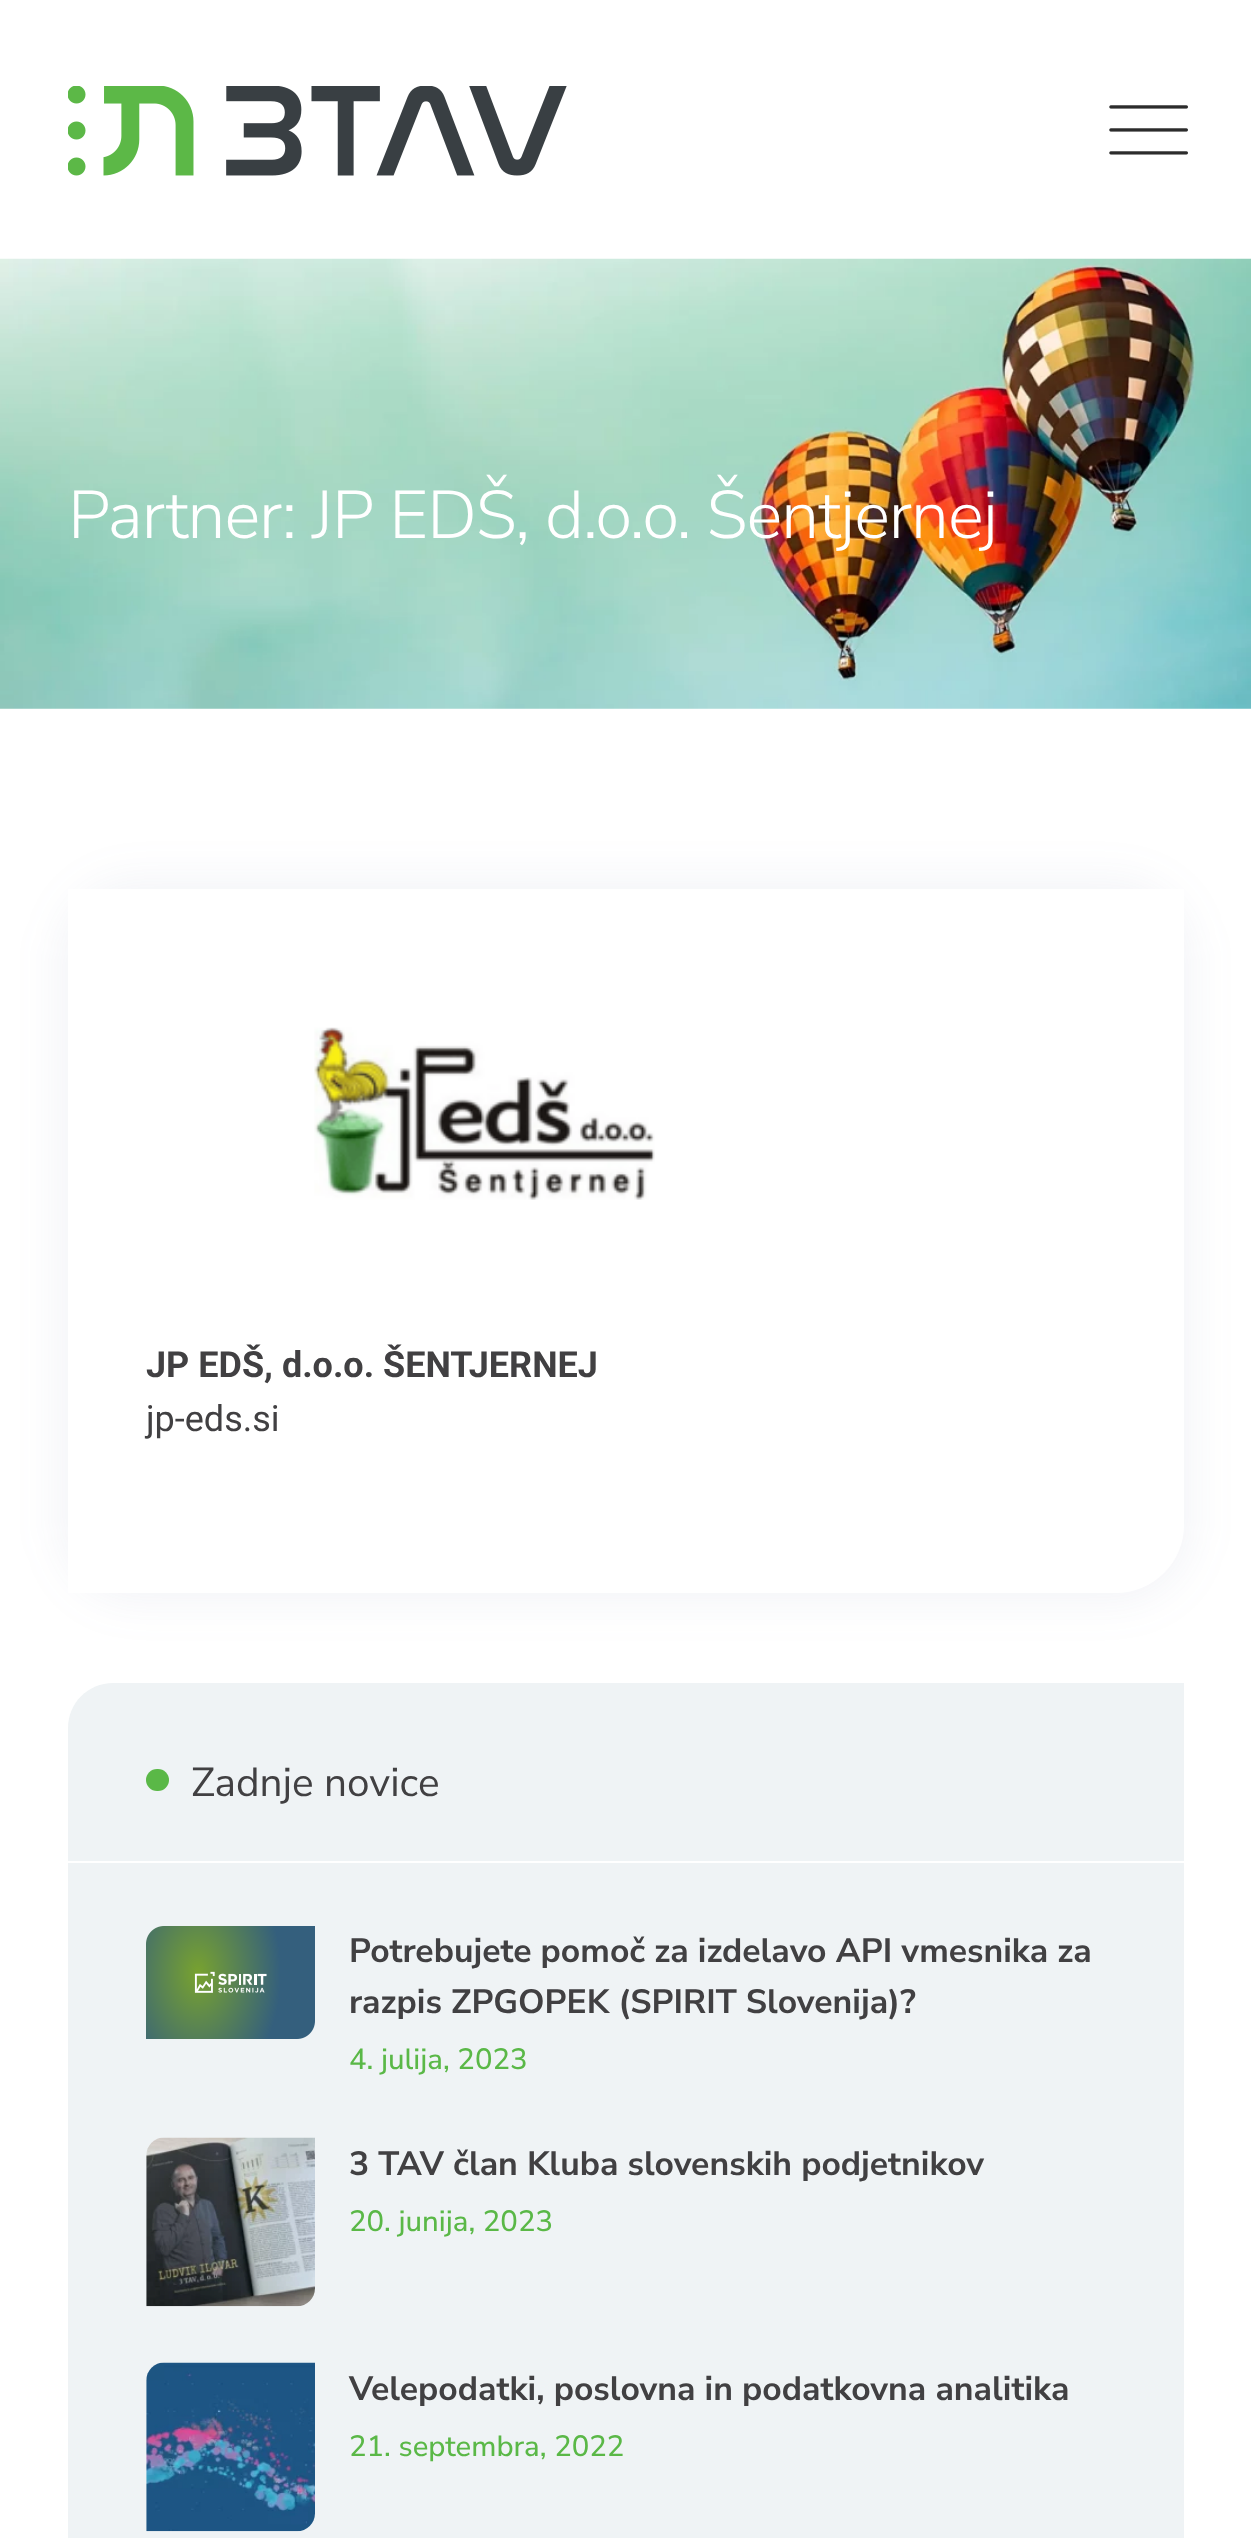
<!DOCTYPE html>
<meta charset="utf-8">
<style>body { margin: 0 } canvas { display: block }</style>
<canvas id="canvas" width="1251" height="2538"></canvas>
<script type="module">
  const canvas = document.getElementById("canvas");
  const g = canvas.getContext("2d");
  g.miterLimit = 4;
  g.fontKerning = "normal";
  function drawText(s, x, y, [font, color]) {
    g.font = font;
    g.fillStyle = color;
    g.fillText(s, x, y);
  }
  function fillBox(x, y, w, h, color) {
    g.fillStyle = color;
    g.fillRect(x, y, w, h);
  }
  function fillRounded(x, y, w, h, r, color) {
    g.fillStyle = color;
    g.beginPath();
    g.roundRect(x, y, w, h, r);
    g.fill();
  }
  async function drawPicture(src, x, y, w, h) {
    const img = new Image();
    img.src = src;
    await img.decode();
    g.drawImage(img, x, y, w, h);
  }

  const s1 = ["300 67.5px Nunito Sans", "#FFFFFF"];
  const s2 = ["bold 36px Roboto", "#414042"];
  const s3 = ["36px Roboto", "#414042"];
  const s4 = ["40.5px Nunito Sans", "#414042"];
  const s5 = ["bold 33.75px Nunito Sans", "#414042"];
  const s6 = ["500 29.25px Nunito Sans", "#5AB847"];

  fillBox(0, 0, 1251, 2538, "#FFFFFF");
  await drawPicture("pic1.png", 68, 86, 499, 90);
  await drawPicture("pic2.png", 1109, 105, 79, 50);
  await drawPicture("pic3.png", 0, 258, 1251, 451);
  g.letterSpacing = "-0.9px";
  drawText("Partner: JP EDŠ, d.o.o. Šentjernej", 68, 538, s1);
  g.fillStyle = "rgba(92, 107, 149, 0.08)";
  g.filter = "blur(22.5px)";
  g.beginPath();
  g.roundRect(61, 882, 1129, 718, 74);
  g.fill();
  g.filter = "none";
  g.fillStyle = "#FFFFFF";
  g.beginPath();
  g.roundRect(68, 889, 1116, 704, [0, 0, 68, 0]);
  g.fill();
  await drawPicture("pic4.png", 314, 1027, 341, 173);
  g.letterSpacing = "0px";
  drawText("JP EDŠ, d.o.o. ŠENTJERNEJ", 146, 1377, s2);
  drawText("jp-eds.si", 146, 1431, s3);
  g.fillStyle = "#EFF3F5";
  g.beginPath();
  g.moveTo(113, 1683);
  g.lineTo(1184, 1683);
  g.lineTo(1184, 2538);
  g.bezierCurveTo(1184, 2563, 1164, 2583, 1139, 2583);
  g.lineTo(68, 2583);
  g.lineTo(68, 1728);
  g.bezierCurveTo(68, 1703, 88, 1683, 113, 1683);
  g.closePath();
  g.fill();
  fillRounded(146, 1769, 23, 22, 11, "#5AB847");
  drawText("Zadnje novice", 191, 1796, s4);
  fillBox(68, 1861, 1116, 2, "#FFFFFF");
  await drawPicture("pic5.png", 146, 1926, 169, 113);
  drawText("Potrebujete pomoč za izdelavo API vmesnika za", 349, 1962, s5);
  drawText("razpis ZPGOPEK (SPIRIT Slovenija)?", 349, 2013, s5);
  drawText("4. julija, 2023", 349, 2069, s6);
  await drawPicture("pic6.png", 146, 2137, 169, 170);
  drawText("3 TAV član Kluba slovenskih podjetnikov", 349, 2175, s5);
  drawText("20. junija, 2023", 349, 2231, s6);
  await drawPicture("pic7.png", 146, 2362, 169, 170);
  drawText("Velepodatki, poslovna in podatkovna analitika", 349, 2400, s5);
  drawText("21. septembra, 2022", 349, 2456, s6);
</script>
